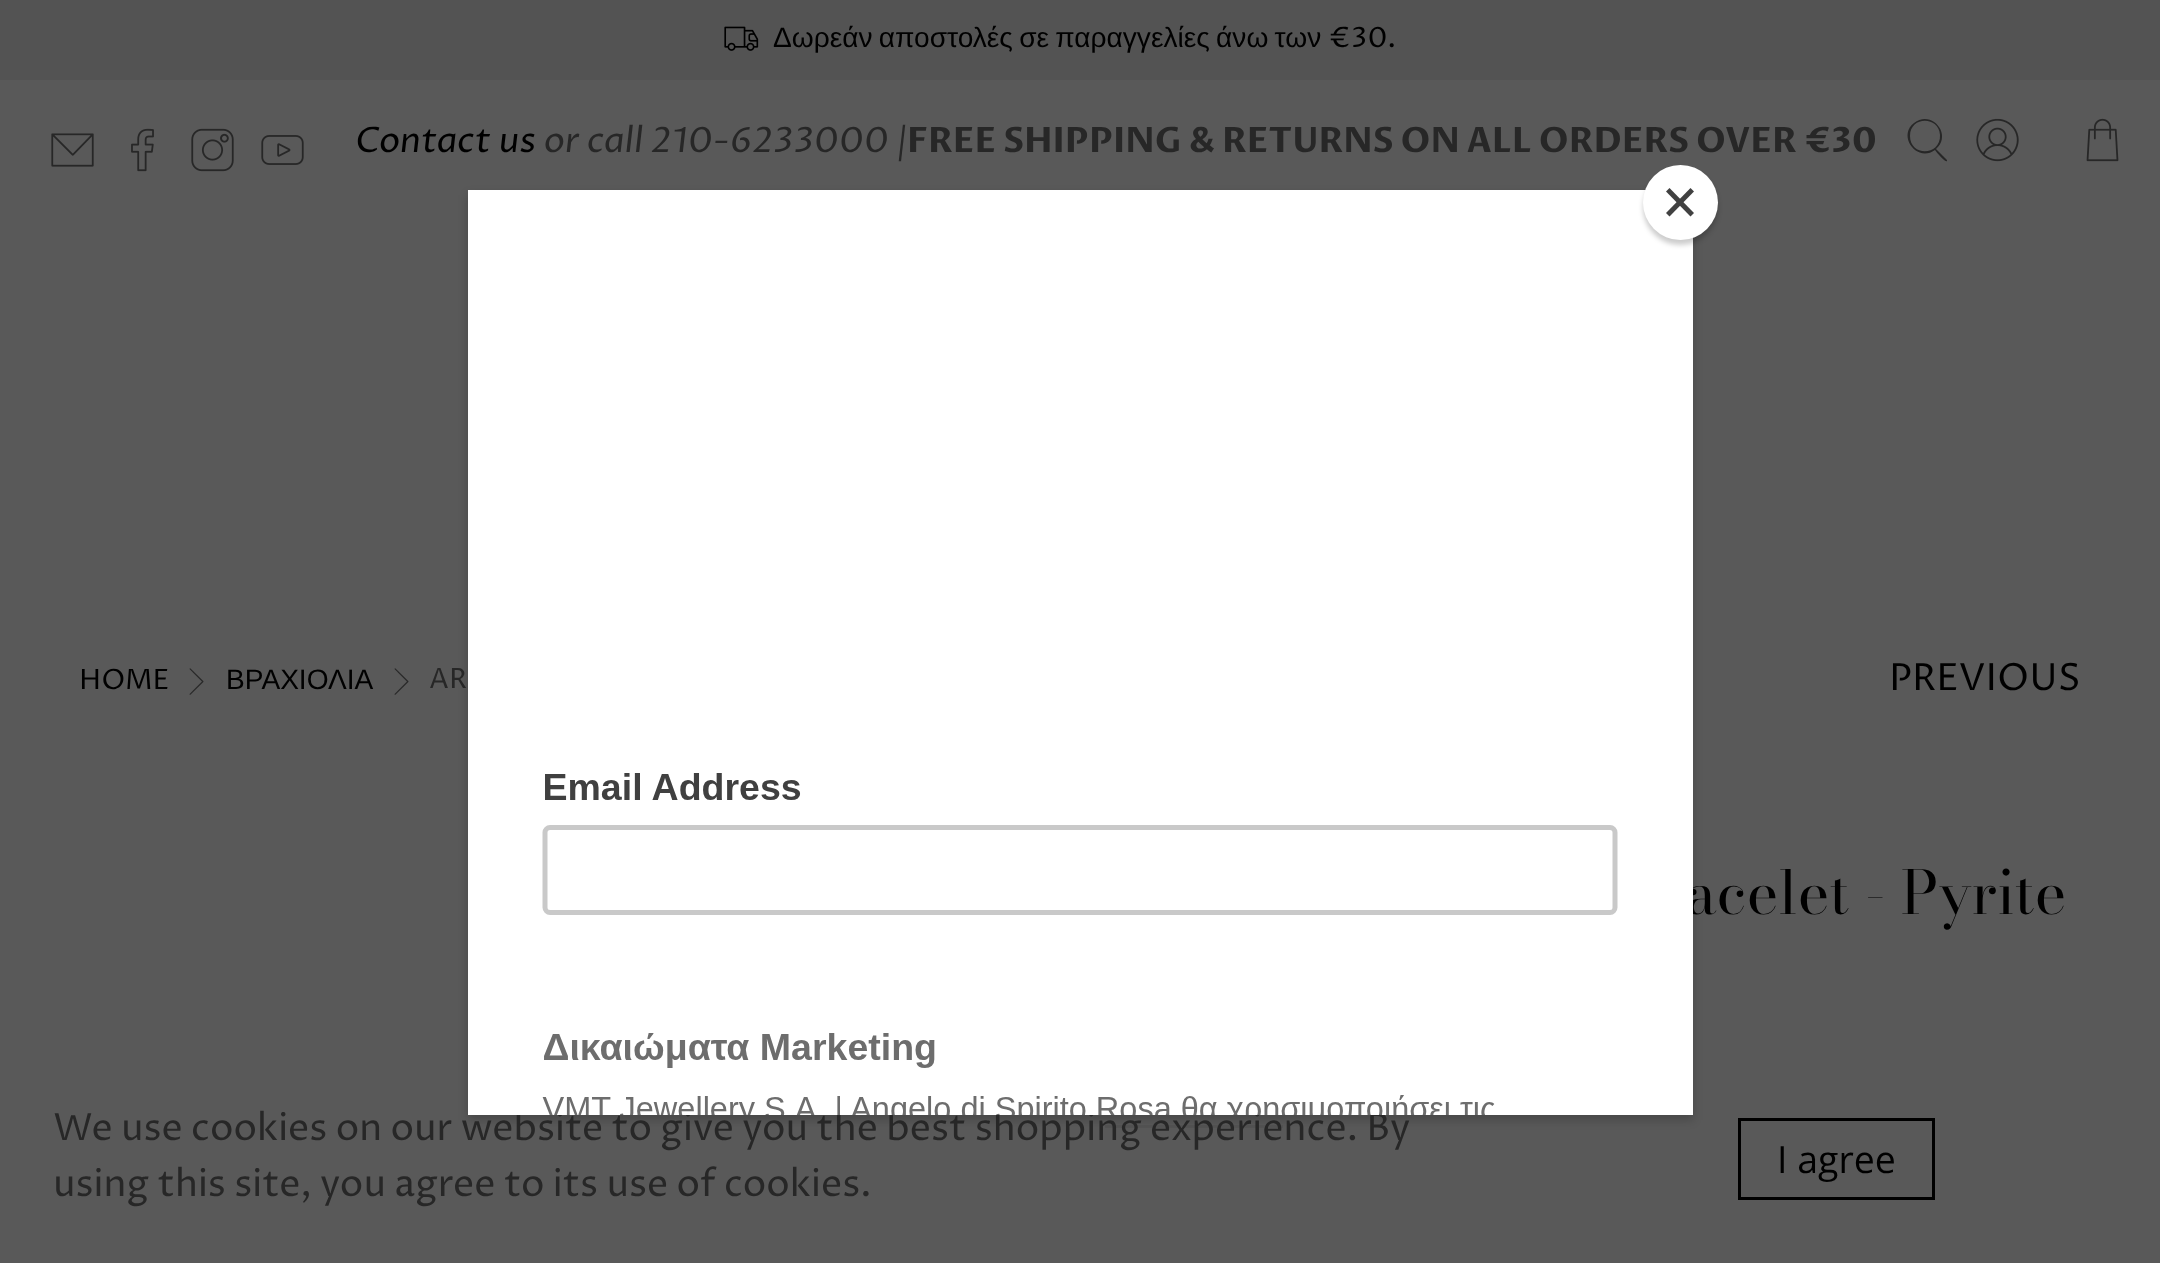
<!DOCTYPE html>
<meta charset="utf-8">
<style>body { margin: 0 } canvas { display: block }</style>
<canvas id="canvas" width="2160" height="1263"></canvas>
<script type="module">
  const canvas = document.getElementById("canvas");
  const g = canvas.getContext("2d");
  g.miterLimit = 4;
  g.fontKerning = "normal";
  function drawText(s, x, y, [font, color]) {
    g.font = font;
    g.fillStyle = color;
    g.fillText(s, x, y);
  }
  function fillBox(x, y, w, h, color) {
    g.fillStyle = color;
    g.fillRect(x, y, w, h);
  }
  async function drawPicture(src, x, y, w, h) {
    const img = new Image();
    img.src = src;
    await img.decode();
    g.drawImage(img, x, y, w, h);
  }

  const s1 = ["28.1px Liberation Sans", "#000000"];
  const s2 = ["28.1px Proza Libre", "#000000"];
  const s3 = ["italic 35px Proza Libre", "#000000"];
  const s4 = ["italic 35px Proza Libre", "#272727"];
  const s5 = ["bold 35px Proza Libre", "#272727"];
  const s6 = ["60px Bodoni Moda", "#000000"];
  const s7 = ["37.5px Proza Libre", "#272727"];
  const s8 = ["28.1px Proza Libre", "#272727"];
  const s9 = ["37.5px Proza Libre", "#000000"];
  const s10 = ["37.5px Open Sans", "#000000"];

  fillBox(0, 0, 2160, 1263, "#595959");
  fillBox(0, 0, 2160, 80, "#535353");
  await drawPicture("pic1.png", 724, 26, 35, 25);
  g.wordSpacing = "-1.5px";
  drawText("Δωρεάν αποστολές σε παραγγελίες άνω των", 773, 47, s1);
  g.wordSpacing = "0px";
  drawText("€30.", 1328, 47, s2);
  await drawPicture("pic2.png", 51, 133, 43, 34);
  await drawPicture("pic3.png", 131, 128, 23, 44);
  await drawPicture("pic4.png", 191, 128, 43, 44);
  await drawPicture("pic5.png", 261, 135, 43, 30);
  drawText("Contact us", 355, 152, s3);
  drawText("or call 210-6233000 |", 544, 152, s4);
  drawText("FREE SHIPPING & RETURNS ON ALL ORDERS OVER €30", 907, 152, s5);
  g.beginPath();
  g.moveTo(1947, 160);
  g.lineTo(1936, 149);
  g.bezierCurveTo(1953, 134, 1931, 109, 1914, 123);
  g.bezierCurveTo(1897, 136, 1917, 163, 1935, 150);
  g.bezierCurveTo(1937, 153, 1946, 163, 1947, 161);
  g.closePath();
  g.moveTo(1910, 136);
  g.bezierCurveTo(1910, 116, 1939, 116, 1940, 135);
  g.bezierCurveTo(1941, 156, 1910, 157, 1910, 136);
  g.closePath();
  g.fill();
  await drawPicture("pic6.png", 1976, 118, 43, 44);
  await drawPicture("pic7.png", 2086, 118, 33, 44);
  fillBox(1105, 1125, 178, 3, "#535353");
  g.fillStyle = "rgba(0, 0, 0, 0.2)";
  g.filter = "blur(5px)";
  g.beginPath();
  g.rect(468, 195, 1225, 925);
  g.fill();
  g.filter = "none";
  drawText("acelet - Pyrite", 1685, 914, s6);
  drawText("We use cookies on our website to give you the best shopping experience. By", 53, 1140, s7);
  await drawPicture("pic8.png", 468, 190, 1225, 925);
  g.fillStyle = "rgba(0, 0, 0, 0.2)";
  g.filter = "blur(2.5px)";
  g.beginPath();
  g.roundRect(1643, 170, 75, 75, 37.5);
  g.fill();
  g.filter = "none";
  g.fillStyle = "#FFFFFF";
  g.beginPath();
  g.arc(1680.5, 202.5, 37.5, 0, Math.PI * 2);
  g.fill();
  g.fillStyle = "#414141";
  g.beginPath();
  g.moveTo(1690.5, 188);
  g.lineTo(1694, 191.5);
  g.lineTo(1669.5, 216.5);
  g.lineTo(1666, 213);
  g.closePath();
  g.fill();
  g.beginPath();
  g.moveTo(1666, 191.5);
  g.lineTo(1669.5, 188);
  g.lineTo(1694, 213);
  g.lineTo(1690.5, 216.5);
  g.closePath();
  g.fill();
  drawText("HOME", 79, 689, s2);
  await drawPicture("pic9.png", 189, 668, 15, 27);
  drawText("ΒΡΑΧΙΟΛΙΑ", 226, 689, s1);
  await drawPicture("pic9.png", 394, 668, 15, 27);
  drawText("AR", 429, 688, s8);
  drawText("PREVIOUS", 1889, 690, s9);
  drawText("using this site, you agree to its use of cookies.", 53, 1196, s7);
  g.strokeStyle = "#000000";
  g.lineWidth = 3;
  g.strokeRect(1739.5, 1119.5, 194, 79);
  drawText("I agree", 1777, 1173, s10);
</script>
